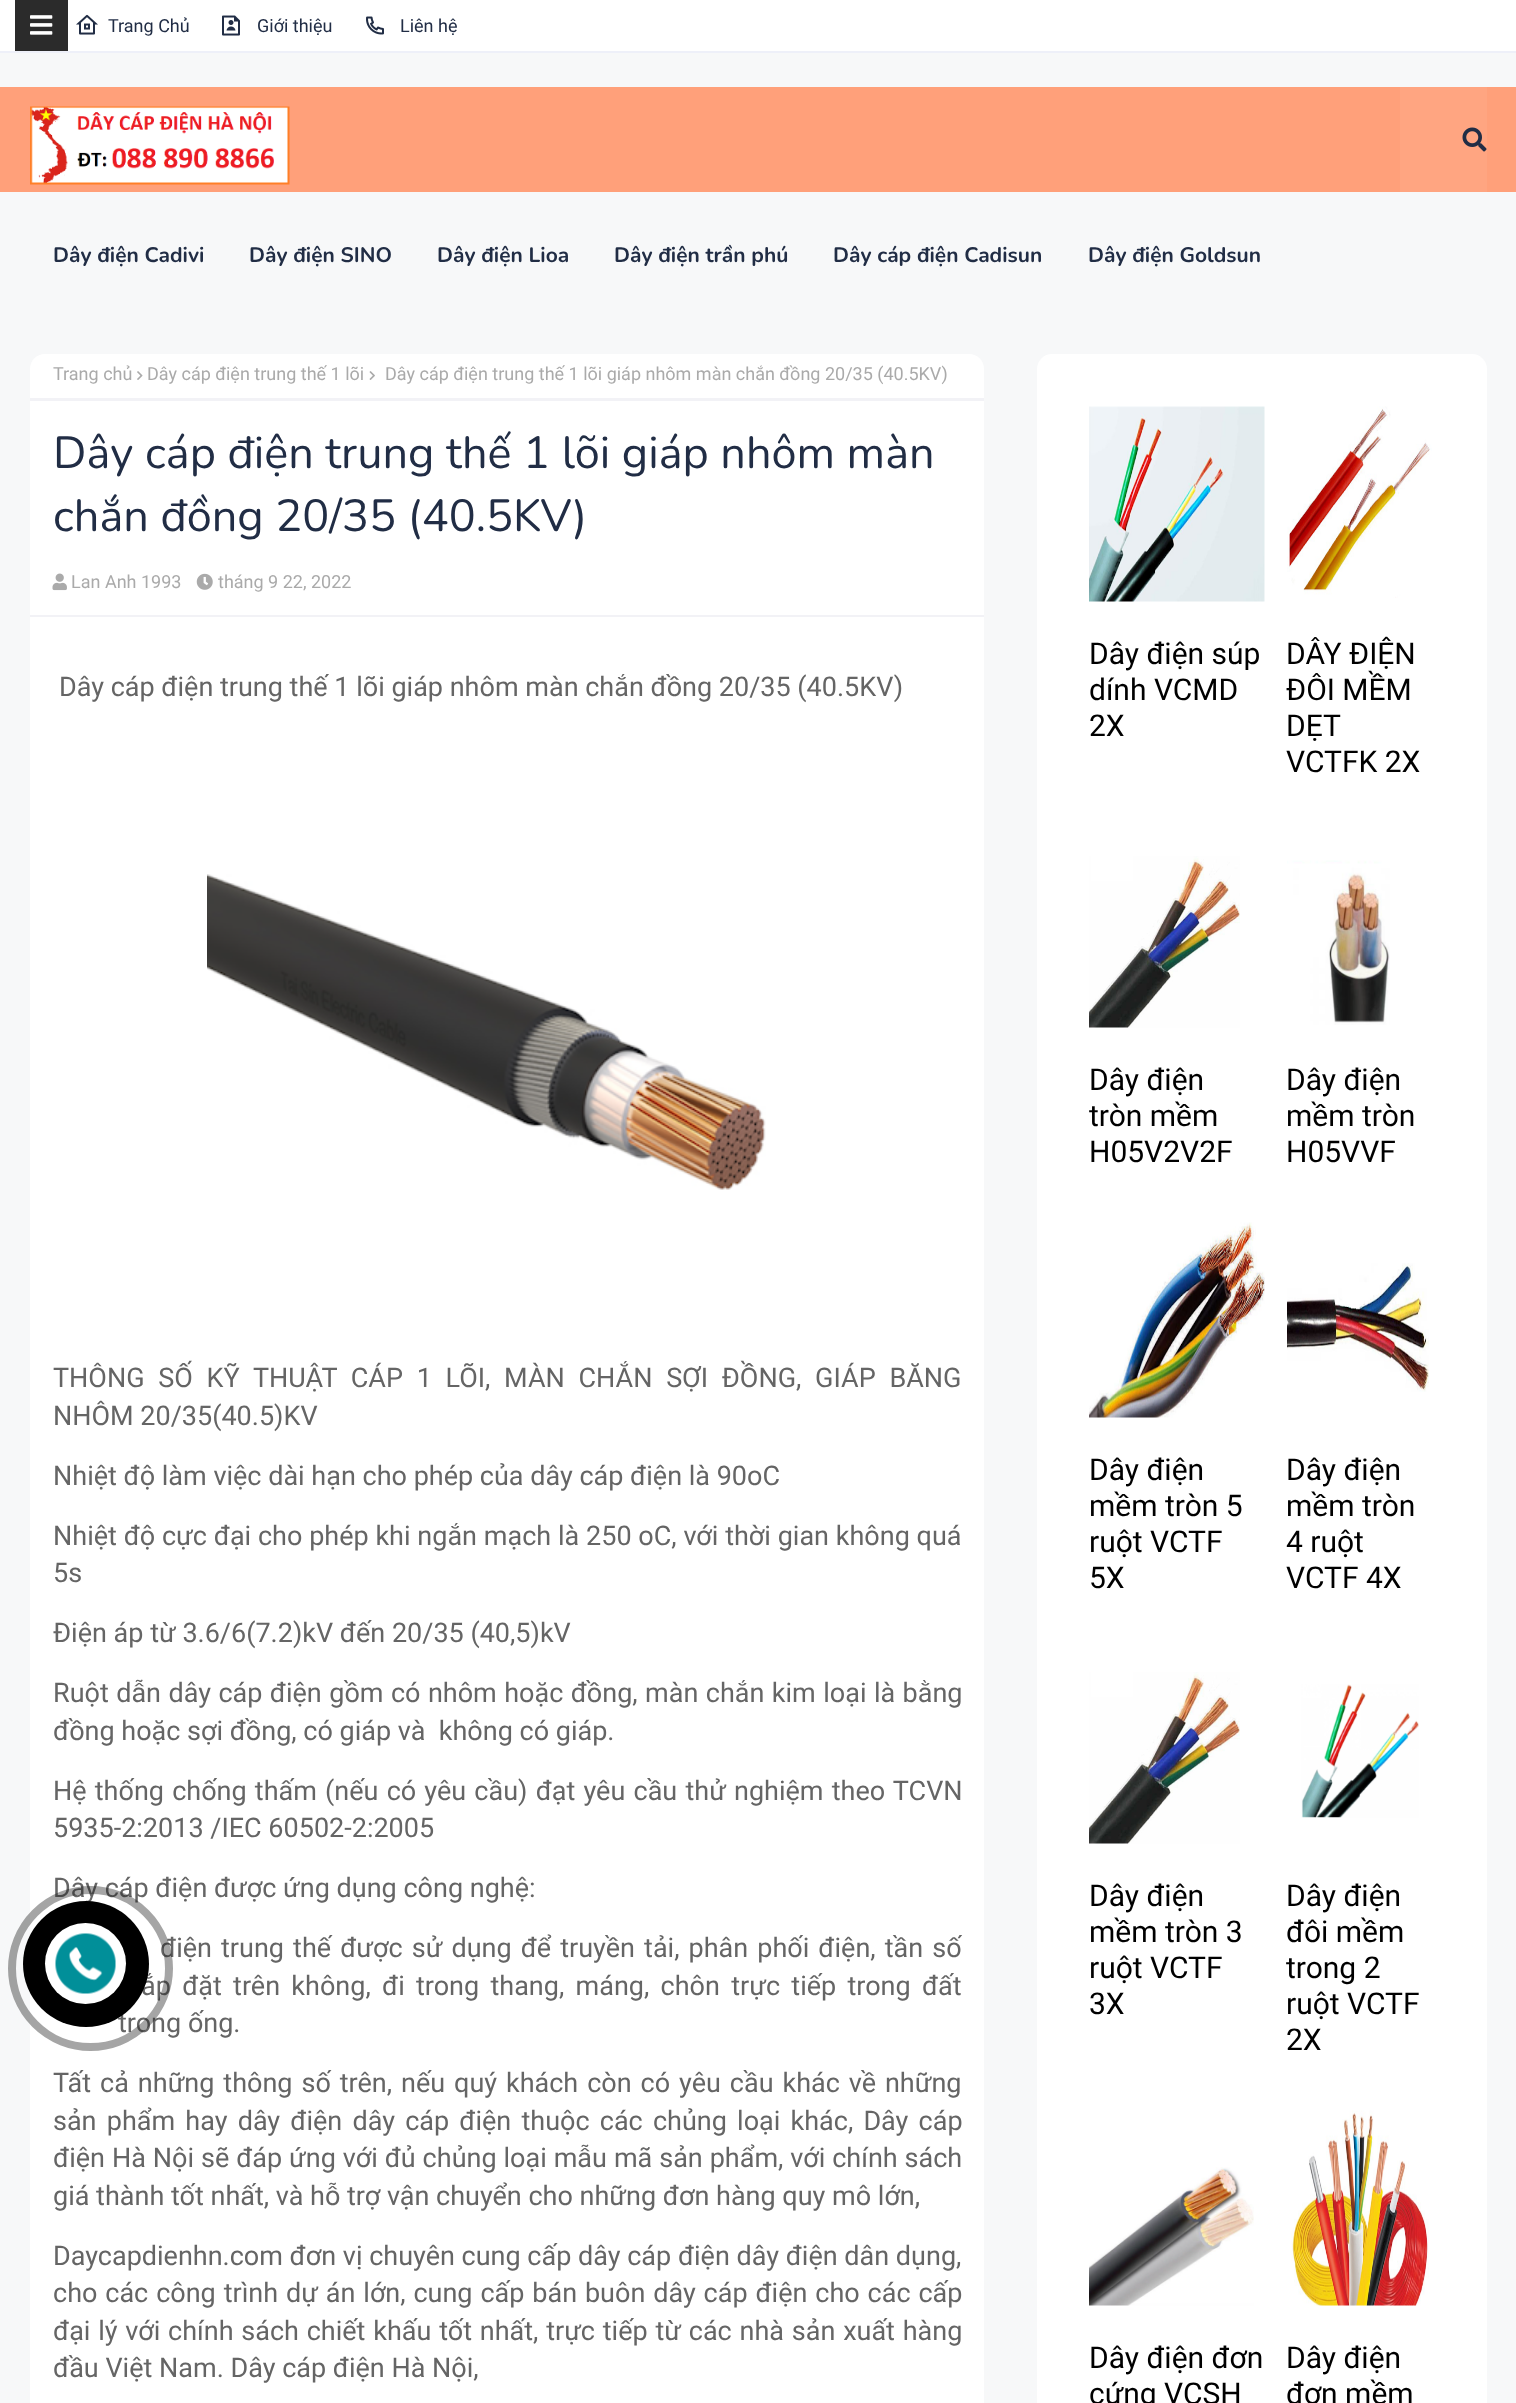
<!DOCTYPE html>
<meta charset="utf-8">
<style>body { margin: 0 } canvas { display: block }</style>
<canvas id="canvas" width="1516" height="2403"></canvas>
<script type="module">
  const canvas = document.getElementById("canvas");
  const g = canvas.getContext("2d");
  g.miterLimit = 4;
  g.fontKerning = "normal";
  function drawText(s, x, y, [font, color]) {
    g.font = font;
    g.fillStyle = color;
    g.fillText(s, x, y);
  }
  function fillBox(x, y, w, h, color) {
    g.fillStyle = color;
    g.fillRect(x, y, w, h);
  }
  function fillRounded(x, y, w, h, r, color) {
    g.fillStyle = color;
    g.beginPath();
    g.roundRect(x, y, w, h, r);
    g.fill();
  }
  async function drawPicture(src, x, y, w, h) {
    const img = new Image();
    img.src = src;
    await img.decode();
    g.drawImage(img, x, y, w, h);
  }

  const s1 = ["18px Roboto", "#212D45"];
  const s2 = ["bold 21px Nunito", "#212D45"];
  const s3 = ["18px Roboto", "#AAAAAA"];
  const s4 = ["45px Nunito", "#212D45"];
  const s5 = ["27px Roboto", "#656565"];
  const s6 = ["30px Roboto", "#000000"];

  fillBox(0, 0, 1516, 2403, "#F7F8F9");
  fillBox(0, 0, 1516, 51, "#FFFFFF");
  fillBox(0, 51, 1516, 2, "#EEF0F9");
  fillBox(15, 0, 53, 51, "#2B2B2B");
  await drawPicture("pic1.png", 30, 15, 23, 20);
  await drawPicture("pic2.png", 76, 14, 22, 21);
  drawText("Trang Chủ", 108, 32, s1);
  await drawPicture("pic3.png", 222, 15, 18, 21);
  drawText("Giới thiệu", 257, 32, s1);
  await drawPicture("pic4.png", 366, 16, 18, 19);
  drawText("Liên hệ", 400, 32, s1);
  fillBox(0, 87, 1516, 105, "#FFA07A");
  await drawPicture("pic5.png", 30, 106, 260, 79);
  fillBox(1400, 87, 87, 105, "#FFA581");
  await drawPicture("pic6.png", 1462, 127, 25, 25);
  drawText("Dây điện Cadivi", 53, 262, s2);
  drawText("Dây điện SINO", 249, 262, s2);
  drawText("Dây điện Lioa", 437, 262, s2);
  drawText("Dây điện trần phú", 614, 262, s2);
  drawText("Dây cáp điện Cadisun", 833, 262, s2);
  drawText("Dây điện Goldsun", 1088, 262, s2);
  g.fillStyle = "#FFFFFF";
  g.beginPath();
  g.moveTo(45, 354);
  g.lineTo(969, 354);
  g.bezierCurveTo(977.5, 354, 984, 360.5, 984, 369);
  g.lineTo(984, 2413);
  g.bezierCurveTo(984, 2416, 982, 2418, 979, 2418);
  g.lineTo(35, 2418);
  g.bezierCurveTo(32, 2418, 30, 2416, 30, 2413);
  g.lineTo(30, 369);
  g.bezierCurveTo(30, 360.5, 36.5, 354, 45, 354);
  g.closePath();
  g.fill();
  fillBox(30, 398, 954, 3, "#F2F2F6");
  drawText("Trang chủ", 53, 380, s3);
  await drawPicture("pic7.png", 137, 371, 6, 9);
  drawText("Dây cáp điện trung thế 1 lõi", 147, 380, s3);
  await drawPicture("pic8.png", 369, 371, 6, 9);
  drawText("Dây cáp điện trung thế 1 lõi giáp nhôm màn chắn đồng 20/35 (40.5KV)", 385, 380, s3);
  drawText("Dây cáp điện trung thế 1 lõi giáp nhôm màn", 53, 468, s4);
  drawText("chắn đồng 20/35 (40.5KV)", 53, 531, s4);
  await drawPicture("pic9.png", 52, 573, 15, 18);
  drawText("Lan Anh 1993", 71, 588, s3);
  await drawPicture("pic10.png", 196, 573, 17, 17);
  drawText("tháng 9 22, 2022", 218, 588, s3);
  fillBox(30, 615, 954, 2, "#F2F2F6");
  drawText("Dây cáp điện trung thế 1 lõi giáp nhôm màn chắn đồng 20/35 (40.5KV)", 59, 696, s5);
  await drawPicture("pic11.png", 207, 874, 559, 316);
  g.wordSpacing = "7px";
  drawText("THÔNG SỐ KỸ THUẬT CÁP 1 LÕI, MÀN CHẮN SỢI ĐỒNG, GIÁP BĂNG", 53, 1387, s5);
  g.wordSpacing = "0px";
  drawText("NHÔM 20/35(40.5)KV", 53, 1425, s5);
  drawText("Nhiệt độ làm việc dài hạn cho phép của dây cáp điện là 90oC", 53, 1485, s5);
  g.wordSpacing = "0.1px";
  drawText("Nhiệt độ cực đại cho phép khi ngắn mạch là 250 oC, với thời gian không quá", 53, 1545, s5);
  g.wordSpacing = "0px";
  drawText("5s", 53, 1582, s5);
  drawText("Điện áp từ 3.6/6(7.2)kV đến 20/35 (40,5)kV", 53, 1642, s5);
  g.wordSpacing = "0.75px";
  drawText("Ruột dẫn dây cáp điện gồm có nhôm hoặc đồng, màn chắn kim loại là bằng", 53, 1702, s5);
  g.wordSpacing = "0px";
  drawText("đồng hoặc sợi đồng, có giáp và  không có giáp.", 53, 1740, s5);
  g.wordSpacing = "1.5px";
  drawText("Hệ thống chống thấm (nếu có yêu cầu) đạt yêu cầu thử nghiệm theo TCVN", 53, 1800, s5);
  g.wordSpacing = "0px";
  drawText("5935-2:2013 /IEC 60502-2:2005", 53, 1837, s5);
  drawText("Dây cáp điện được ứng dụng công nghệ:", 53, 1897, s5);
  g.wordSpacing = "2.4px";
  drawText("điện trung thế được sử dụng để truyền tải, phân phối điện, tần số", 160, 1957, s5);
  g.wordSpacing = "4.6px";
  drawText("ắp đặt trên không, đi trong thang, máng, chôn trực tiếp trong đất", 141, 1995, s5);
  g.wordSpacing = "0px";
  drawText("trong ống.", 118, 2032, s5);
  g.wordSpacing = "2.25px";
  drawText("Tất cả những thông số trên, nếu quý khách còn có yêu cầu khác về những", 53, 2092, s5);
  g.wordSpacing = "3.5px";
  drawText("sản phẩm hay dây điện dây cáp điện thuộc các chủng loại khác, Dây cáp", 53, 2130, s5);
  g.wordSpacing = "0.25px";
  drawText("điện Hà Nội sẽ đáp ứng với đủ chủng loại mẫu mã sản phẩm, với chính sách", 53, 2167, s5);
  g.wordSpacing = "0px";
  drawText("giá thành tốt nhất, và hỗ trợ vận chuyển cho những đơn hàng quy mô lớn,", 53, 2205, s5);
  drawText("Daycapdienhn.com đơn vị chuyên cung cấp dây cáp điện dây điện dân dụng,", 53, 2265, s5);
  g.wordSpacing = "1.2px";
  drawText("cho các công trình dự án lớn, cung cấp bán buôn dây cáp điện cho các cấp", 53, 2302, s5);
  g.wordSpacing = "1.1px";
  drawText("đại lý với chính sách chiết khấu tốt nhất, trực tiếp từ các nhà sản xuất hàng", 53, 2340, s5);
  g.wordSpacing = "0px";
  drawText("đầu Việt Nam. Dây cáp điện Hà Nội,", 53, 2377, s5);
  fillRounded(1037, 354, 450, 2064, 15, "#FFFFFF");
  await drawPicture("pic12.png", 1089, 406, 176, 196);
  drawText("Dây điện súp", 1089, 664, s6);
  drawText("dính VCMD", 1089, 700, s6);
  drawText("2X", 1089, 736, s6);
  await drawPicture("pic13.png", 1287, 406, 145, 192);
  drawText("DÂY ĐIỆN", 1286, 664, s6);
  drawText("ĐÔI MỀM", 1286, 700, s6);
  drawText("DẸT", 1286, 736, s6);
  drawText("VCTFK 2X", 1286, 772, s6);
  await drawPicture("pic14.png", 1089, 856, 151, 172);
  drawText("Dây điện", 1089, 1090, s6);
  drawText("tròn mềm", 1089, 1126, s6);
  drawText("H05V2V2F", 1089, 1162, s6);
  await drawPicture("pic15.png", 1287, 860, 103, 165);
  drawText("Dây điện", 1286, 1090, s6);
  drawText("mềm tròn", 1286, 1126, s6);
  drawText("H05VVF", 1286, 1162, s6);
  await drawPicture("pic16.png", 1089, 1222, 176, 196);
  drawText("Dây điện", 1089, 1480, s6);
  drawText("mềm tròn 5", 1089, 1516, s6);
  drawText("ruột VCTF", 1089, 1552, s6);
  drawText("5X", 1089, 1588, s6);
  await drawPicture("pic17.png", 1287, 1263, 142, 129);
  drawText("Dây điện", 1286, 1480, s6);
  drawText("mềm tròn", 1286, 1516, s6);
  drawText("4 ruột", 1286, 1552, s6);
  drawText("VCTF 4X", 1286, 1588, s6);
  await drawPicture("pic18.png", 1089, 1672, 151, 172);
  drawText("Dây điện", 1089, 1906, s6);
  drawText("mềm tròn 3", 1089, 1942, s6);
  drawText("ruột VCTF", 1089, 1978, s6);
  drawText("3X", 1089, 2014, s6);
  await drawPicture("pic19.png", 1301, 1684, 118, 134);
  drawText("Dây điện", 1286, 1906, s6);
  drawText("đôi mềm", 1286, 1942, s6);
  drawText("trong 2", 1286, 1978, s6);
  drawText("ruột VCTF", 1286, 2014, s6);
  drawText("2X", 1286, 2050, s6);
  await drawPicture("pic20.png", 1089, 2167, 165, 139);
  drawText("Dây điện đơn", 1089, 2368, s6);
  drawText("cứng VCSH", 1089, 2404, s6);
  await drawPicture("pic21.png", 1290, 2110, 139, 196);
  drawText("Dây điện", 1286, 2368, s6);
  drawText("đơn mềm", 1286, 2404, s6);
  g.beginPath();
  g.arc(90.5, 1968.5, 78.5, 0, Math.PI * 2);
  g.strokeStyle = "rgba(30, 30, 30, 0.4)";
  g.lineWidth = 8;
  g.stroke();
  g.beginPath();
  g.arc(86, 1964, 63, 0, Math.PI * 2);
  g.fill();
  g.fillStyle = "#FFFFFF";
  g.beginPath();
  g.arc(85.5, 1963.5, 40.5, 0, Math.PI * 2);
  g.fill();
  await drawPicture("pic22.png", 55, 1933, 61, 61);
</script>
